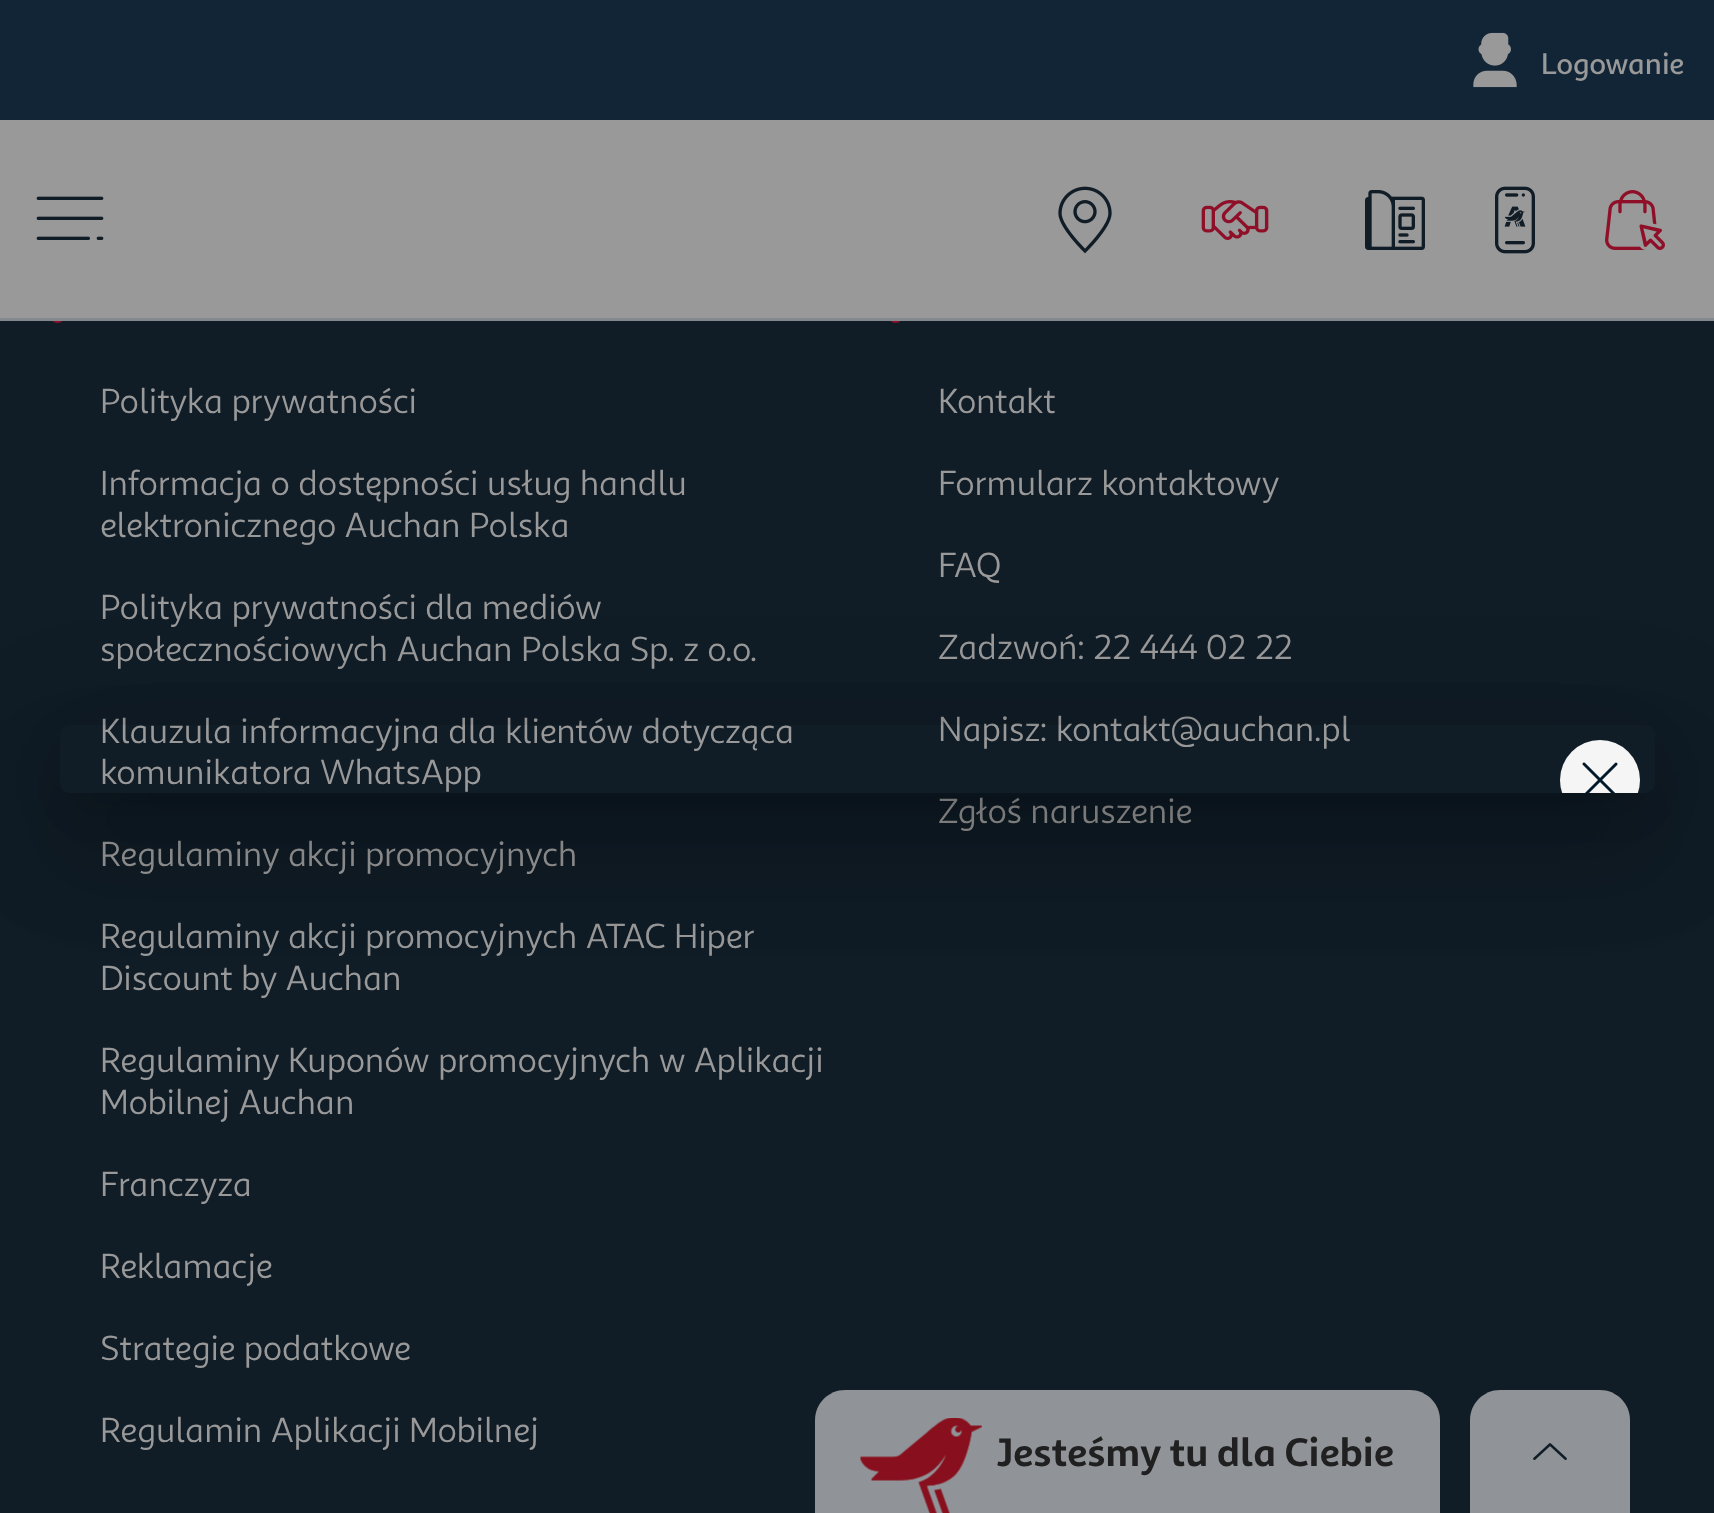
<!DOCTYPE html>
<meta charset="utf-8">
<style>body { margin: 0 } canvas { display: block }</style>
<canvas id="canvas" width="1714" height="1513"></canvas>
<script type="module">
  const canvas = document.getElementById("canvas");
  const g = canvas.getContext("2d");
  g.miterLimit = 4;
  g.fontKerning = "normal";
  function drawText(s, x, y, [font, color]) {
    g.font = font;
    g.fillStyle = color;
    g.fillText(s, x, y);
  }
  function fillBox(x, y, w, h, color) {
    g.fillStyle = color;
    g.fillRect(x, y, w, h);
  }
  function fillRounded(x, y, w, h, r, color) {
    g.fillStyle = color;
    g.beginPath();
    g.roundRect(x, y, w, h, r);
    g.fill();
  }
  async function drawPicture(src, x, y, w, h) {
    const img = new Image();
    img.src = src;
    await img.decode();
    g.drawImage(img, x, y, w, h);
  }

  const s1 = ["500 30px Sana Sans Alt", "#999999"];
  const s2 = ["35px Sana Sans Alt", "#999999"];
  const s3 = ["bold 40px Sana Sans Alt", "#202021"];

  fillBox(0, 0, 1714, 1513, "#101C26");
  fillRounded(50, 275, 15, 48, 7.5, "#8F0F28");
  fillRounded(888, 275, 15, 48, 7.5, "#8F0F28");
  fillBox(0, 120, 1714, 198, "#999999");
  fillBox(0, 0, 1714, 120, "#112537");
  await drawPicture("pic1.png", 1473, 32, 44, 56);
  drawText("Logowanie", 1541, 74, s1);
  await drawPicture("pic2.png", 36, 196, 68, 44);
  await drawPicture("pic3.png", 1058, 186, 54, 68);
  await drawPicture("pic4.png", 1201, 200, 68, 40);
  await drawPicture("pic5.png", 1365, 190, 60, 60);
  await drawPicture("pic6.png", 1495, 186, 40, 68);
  await drawPicture("pic7.png", 1605, 190, 60, 60);
  fillBox(0, 318, 1714, 3, "#83898F");
  drawText("Polityka prywatności", 100, 413, s2);
  drawText("Informacja o dostępności usług handlu", 100, 495, s2);
  drawText("elektronicznego Auchan Polska", 100, 537, s2);
  drawText("Polityka prywatności dla mediów", 100, 619, s2);
  drawText("społecznościowych Auchan Polska Sp. z o.o.", 100, 661, s2);
  drawText("Klauzula informacyjna dla klientów dotycząca", 100, 743, s2);
  drawText("komunikatora WhatsApp", 100, 784, s2);
  drawText("Regulaminy akcji promocyjnych", 100, 866, s2);
  drawText("Regulaminy akcji promocyjnych ATAC Hiper", 100, 948, s2);
  drawText("Discount by Auchan", 100, 990, s2);
  drawText("Regulaminy Kuponów promocyjnych w Aplikacji", 100, 1072, s2);
  drawText("Mobilnej Auchan", 100, 1114, s2);
  drawText("Franczyza", 100, 1196, s2);
  drawText("Reklamacje", 100, 1278, s2);
  drawText("Strategie podatkowe", 100, 1360, s2);
  drawText("Regulamin Aplikacji Mobilnej", 100, 1442, s2);
  drawText("Kontakt", 938, 413, s2);
  drawText("Formularz kontaktowy", 938, 495, s2);
  drawText("FAQ", 938, 577, s2);
  drawText("Zadzwoń: 22 444 02 22", 938, 659, s2);
  drawText("Napisz: kontakt@auchan.pl", 938, 741, s2);
  drawText("Zgłoś naruszenie", 938, 823, s2);
  g.fillStyle = "#909397";
  g.beginPath();
  g.moveTo(845, 1390);
  g.lineTo(1410, 1390);
  g.bezierCurveTo(1426.5, 1390, 1440, 1403.5, 1440, 1420);
  g.lineTo(1440, 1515);
  g.lineTo(815, 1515);
  g.lineTo(815, 1420);
  g.bezierCurveTo(815, 1403.5, 828.5, 1390, 845, 1390);
  g.closePath();
  g.fill();
  await drawPicture("pic8.png", 860, 1418, 122, 95);
  drawText("Jesteśmy tu dla Ciebie", 996, 1466, s3);
  g.fillStyle = "#909397";
  g.beginPath();
  g.moveTo(1500, 1390);
  g.lineTo(1600, 1390);
  g.bezierCurveTo(1616.5, 1390, 1630, 1403.5, 1630, 1420);
  g.lineTo(1630, 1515);
  g.lineTo(1470, 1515);
  g.lineTo(1470, 1420);
  g.bezierCurveTo(1470, 1403.5, 1483.5, 1390, 1500, 1390);
  g.closePath();
  g.fill();
  await drawPicture("pic9.png", 1533, 1443, 34, 17);
  g.save();
  g.beginPath();
  g.moveTo(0, 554);
  g.lineTo(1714, 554);
  g.lineTo(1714, 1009);
  g.lineTo(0, 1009);
  g.closePath();
  g.moveTo(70, 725);
  g.lineTo(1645, 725);
  g.bezierCurveTo(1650.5, 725, 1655, 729.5, 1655, 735);
  g.lineTo(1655, 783);
  g.bezierCurveTo(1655, 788.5, 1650.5, 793, 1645, 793);
  g.lineTo(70, 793);
  g.bezierCurveTo(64.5, 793, 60, 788.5, 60, 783);
  g.lineTo(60, 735);
  g.bezierCurveTo(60, 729.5, 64.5, 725, 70, 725);
  g.closePath();
  g.clip("evenodd");
  g.fillStyle = "rgba(0, 0, 0, 0.12)";
  g.filter = "blur(57.5px)";
  g.beginPath();
  g.roundRect(40, 728, 1635, 107, 30);
  g.fill();
  g.filter = "none";
  g.restore();
  g.save();
  g.beginPath();
  g.moveTo(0, 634);
  g.lineTo(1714, 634);
  g.lineTo(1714, 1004);
  g.lineTo(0, 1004);
  g.closePath();
  g.moveTo(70, 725);
  g.lineTo(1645, 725);
  g.bezierCurveTo(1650.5, 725, 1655, 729.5, 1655, 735);
  g.lineTo(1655, 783);
  g.bezierCurveTo(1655, 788.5, 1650.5, 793, 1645, 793);
  g.lineTo(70, 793);
  g.bezierCurveTo(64.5, 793, 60, 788.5, 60, 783);
  g.lineTo(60, 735);
  g.bezierCurveTo(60, 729.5, 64.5, 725, 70, 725);
  g.closePath();
  g.clip("evenodd");
  g.fillStyle = "rgba(0, 0, 0, 0.14)";
  g.filter = "blur(47.5px)";
  g.beginPath();
  g.roundRect(53, 778, 1610, 82, 18);
  g.fill();
  g.filter = "none";
  g.restore();
  g.save();
  g.beginPath();
  g.moveTo(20, 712);
  g.lineTo(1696, 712);
  g.lineTo(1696, 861);
  g.lineTo(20, 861);
  g.closePath();
  g.moveTo(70, 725);
  g.lineTo(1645, 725);
  g.bezierCurveTo(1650.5, 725, 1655, 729.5, 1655, 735);
  g.lineTo(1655, 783);
  g.bezierCurveTo(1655, 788.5, 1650.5, 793, 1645, 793);
  g.lineTo(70, 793);
  g.bezierCurveTo(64.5, 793, 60, 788.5, 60, 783);
  g.lineTo(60, 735);
  g.bezierCurveTo(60, 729.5, 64.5, 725, 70, 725);
  g.closePath();
  g.clip("evenodd");
  g.fillStyle = "rgba(0, 0, 0, 0.2)";
  g.filter = "blur(19px)";
  g.beginPath();
  g.rect(78, 770, 1560, 33);
  g.fill();
  g.filter = "none";
  g.restore();
  g.save();
  g.beginPath();
  g.roundRect(60, 725, 1595, 68, 10);
  g.clip();
  g.fillStyle = "#F5F5F5";
  g.beginPath();
  g.arc(1600, 780, 40, 0, Math.PI * 2);
  g.fill();
  g.restore();
  await drawPicture("pic10.png", 1582, 762, 36, 31);
</script>
